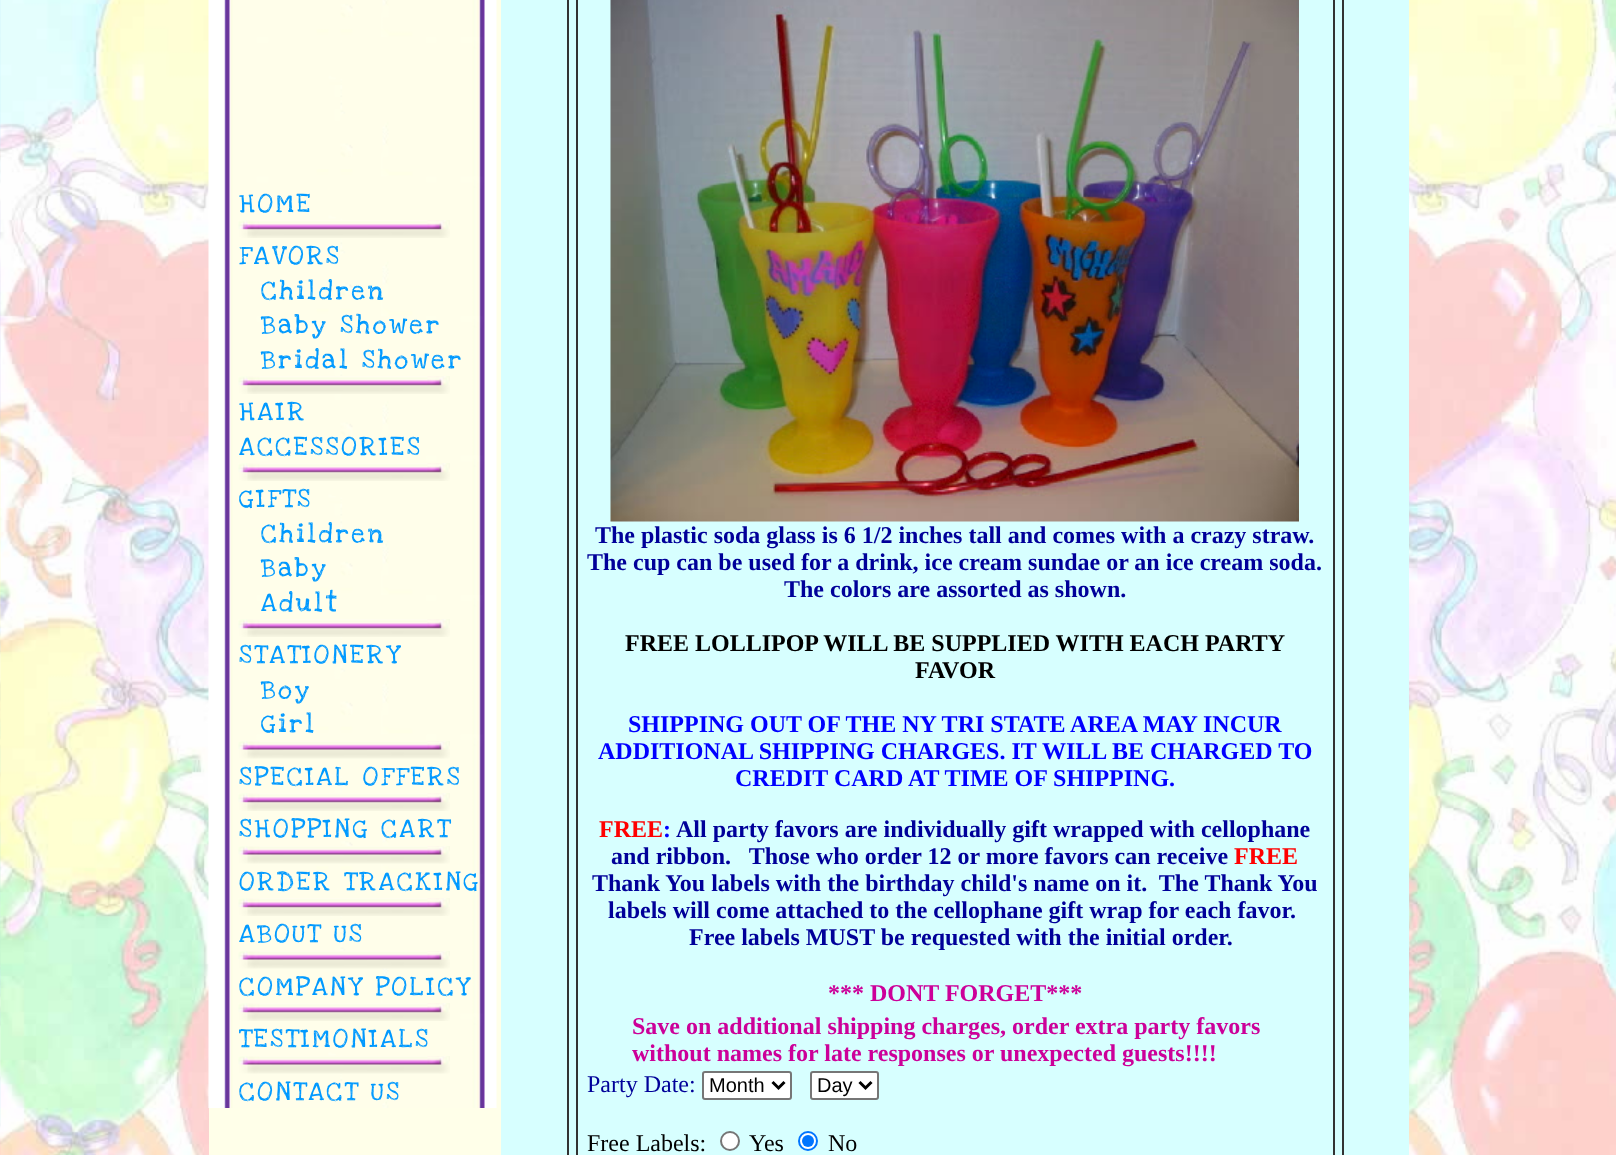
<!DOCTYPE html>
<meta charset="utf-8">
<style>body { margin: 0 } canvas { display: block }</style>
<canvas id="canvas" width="1616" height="1155"></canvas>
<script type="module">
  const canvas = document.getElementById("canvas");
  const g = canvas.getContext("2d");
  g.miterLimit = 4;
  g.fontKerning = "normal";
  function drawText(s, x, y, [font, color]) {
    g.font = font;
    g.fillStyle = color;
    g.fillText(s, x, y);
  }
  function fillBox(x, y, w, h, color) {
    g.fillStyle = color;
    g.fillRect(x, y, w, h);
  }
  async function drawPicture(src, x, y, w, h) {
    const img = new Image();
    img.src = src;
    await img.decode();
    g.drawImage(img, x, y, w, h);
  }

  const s1 = ["27px Love Ya Like A Sister", "#0099FF"];
  const s2 = ["bold 24px Liberation Serif", "#000099"];
  const s3 = ["bold 24px Liberation Serif", "#000000"];
  const s4 = ["bold 24px Liberation Serif", "#0000FF"];
  const s5 = ["bold 24px Liberation Serif", "#FF0000"];
  const s6 = ["bold 24px Liberation Serif", "#CC0099"];
  const s7 = ["24px Liberation Serif", "#000099"];
  const s8 = ["20px Liberation Sans", "#000000"];
  const s9 = ["24px Liberation Serif", "#000000"];

  fillBox(0, 0, 1616, 1155, "#FFFFFF");
  await drawPicture("pic1.png", 0, 0, 1616, 1155);
  fillBox(209, 0, 292, 1155, "#FFFFE9");
  await drawPicture("pic2.png", 208, 0, 289, 1108);
  g.letterSpacing = "3px";
  drawText("HOME", 239, 212, s1);
  await drawPicture("pic3.png", 238, 220, 212, 18);
  drawText("FAVORS", 239, 264, s1);
  drawText("Children", 261, 299, s1);
  drawText("Baby Shower", 261, 333, s1);
  drawText("Bridal Shower", 261, 368, s1);
  await drawPicture("pic3.png", 238, 376, 212, 18);
  drawText("HAIR", 239, 420, s1);
  drawText("ACCESSORIES", 239, 455, s1);
  await drawPicture("pic3.png", 238, 463, 212, 18);
  drawText("GIFTS", 239, 507, s1);
  drawText("Children", 261, 542, s1);
  drawText("Baby", 261, 576, s1);
  drawText("Adult", 261, 611, s1);
  await drawPicture("pic3.png", 238, 619, 212, 18);
  drawText("STATIONERY", 239, 663, s1);
  drawText("Boy", 261, 698, s1);
  drawText("Girl", 261, 732, s1);
  await drawPicture("pic4.png", 238, 741, 212, 18);
  drawText("SPECIAL OFFERS", 239, 785, s1);
  await drawPicture("pic3.png", 238, 793, 212, 18);
  drawText("SHOPPING CART", 239, 837, s1);
  await drawPicture("pic5.png", 238, 846, 212, 18);
  drawText("ORDER TRACKING", 239, 890, s1);
  await drawPicture("pic3.png", 238, 898, 212, 18);
  drawText("ABOUT US", 239, 942, s1);
  await drawPicture("pic6.png", 238, 951, 212, 18);
  drawText("COMPANY POLICY", 239, 995, s1);
  await drawPicture("pic3.png", 238, 1003, 212, 18);
  drawText("TESTIMONIALS", 239, 1047, s1);
  await drawPicture("pic7.png", 238, 1056, 212, 18);
  drawText("CONTACT US", 239, 1100, s1);
  fillBox(501, 0, 908, 1155, "#D7FFFF");
  g.strokeStyle = "#333333";
  g.lineWidth = 2;
  g.strokeRect(568, -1, 775, 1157);
  g.strokeRect(577, -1, 757, 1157);
  await drawPicture("pic8.png", 610, 0, 689, 522);
  g.letterSpacing = "0px";
  drawText("The plastic soda glass is 6 1/2 inches tall and comes with a crazy straw.", 595, 543, s2);
  drawText("The cup can be used for a drink, ice cream sundae or an ice cream soda.", 587, 570, s2);
  drawText("The colors are assorted as shown.", 784, 597, s2);
  drawText("FREE LOLLIPOP WILL BE SUPPLIED WITH EACH PARTY", 625, 651, s3);
  drawText("FAVOR", 915, 678, s3);
  drawText("SHIPPING OUT OF THE NY TRI STATE AREA MAY INCUR", 628, 732, s4);
  drawText("ADDITIONAL SHIPPING CHARGES. IT WILL BE CHARGED TO", 598, 759, s4);
  drawText("CREDIT CARD AT TIME OF SHIPPING.", 735, 786, s4);
  drawText("FREE", 599, 837, s5);
  drawText(":", 663, 837, s4);
  drawText("All party favors are individually gift wrapped with cellophane", 676, 837, s2);
  drawText("and ribbon.   Those who order 12 or more favors can receive", 611, 864, s2);
  drawText("FREE", 1234, 864, s5);
  drawText("Thank You labels with the birthday child's name on it.  The Thank You", 592, 891, s2);
  drawText("labels will come attached to the cellophane gift wrap for each favor.", 608, 918, s2);
  drawText("Free labels MUST be requested with the initial order.", 689, 945, s2);
  drawText("*** DONT FORGET***", 828, 1001, s6);
  drawText("Save on additional shipping charges, order extra party favors", 632, 1034, s6);
  drawText("without names for late responses or unexpected guests!!!!", 632, 1061, s6);
  drawText("Party Date:", 587, 1092, s7);
  g.fillStyle = "#FFFFFF";
  g.beginPath();
  g.roundRect(703, 1072, 88, 27, 2);
  g.fill();
  g.strokeStyle = "#767676";
  g.stroke();
  g.beginPath();
  g.moveTo(772.5, 1082);
  g.lineTo(778.5, 1088);
  g.lineTo(784.5, 1082);
  g.strokeStyle = "#000000";
  g.lineWidth = 3;
  g.stroke();
  drawText("Month", 709, 1092, s8);
  g.fillStyle = "#FFFFFF";
  g.beginPath();
  g.roundRect(811, 1072, 67, 27, 2);
  g.fill();
  g.strokeStyle = "#767676";
  g.lineWidth = 2;
  g.stroke();
  g.beginPath();
  g.moveTo(859.5, 1082);
  g.lineTo(865.5, 1088);
  g.lineTo(871.5, 1082);
  g.strokeStyle = "#000000";
  g.lineWidth = 3;
  g.stroke();
  drawText("Day", 817, 1092, s8);
  drawText("Free Labels:", 587, 1151, s9);
  g.fillStyle = "#FFFFFF";
  g.beginPath();
  g.arc(730, 1141, 9, 0, Math.PI * 2);
  g.fill();
  g.strokeStyle = "#767676";
  g.lineWidth = 2;
  g.stroke();
  drawText("Yes", 749, 1151, s9);
  g.fillStyle = "#FFFFFF";
  g.beginPath();
  g.arc(808, 1141, 9, 0, Math.PI * 2);
  g.fill();
  g.strokeStyle = "#0075FF";
  g.stroke();
  g.fillStyle = "#0075FF";
  g.beginPath();
  g.arc(808, 1141, 6, 0, Math.PI * 2);
  g.fill();
  drawText("No", 828, 1151, s9);
</script>
